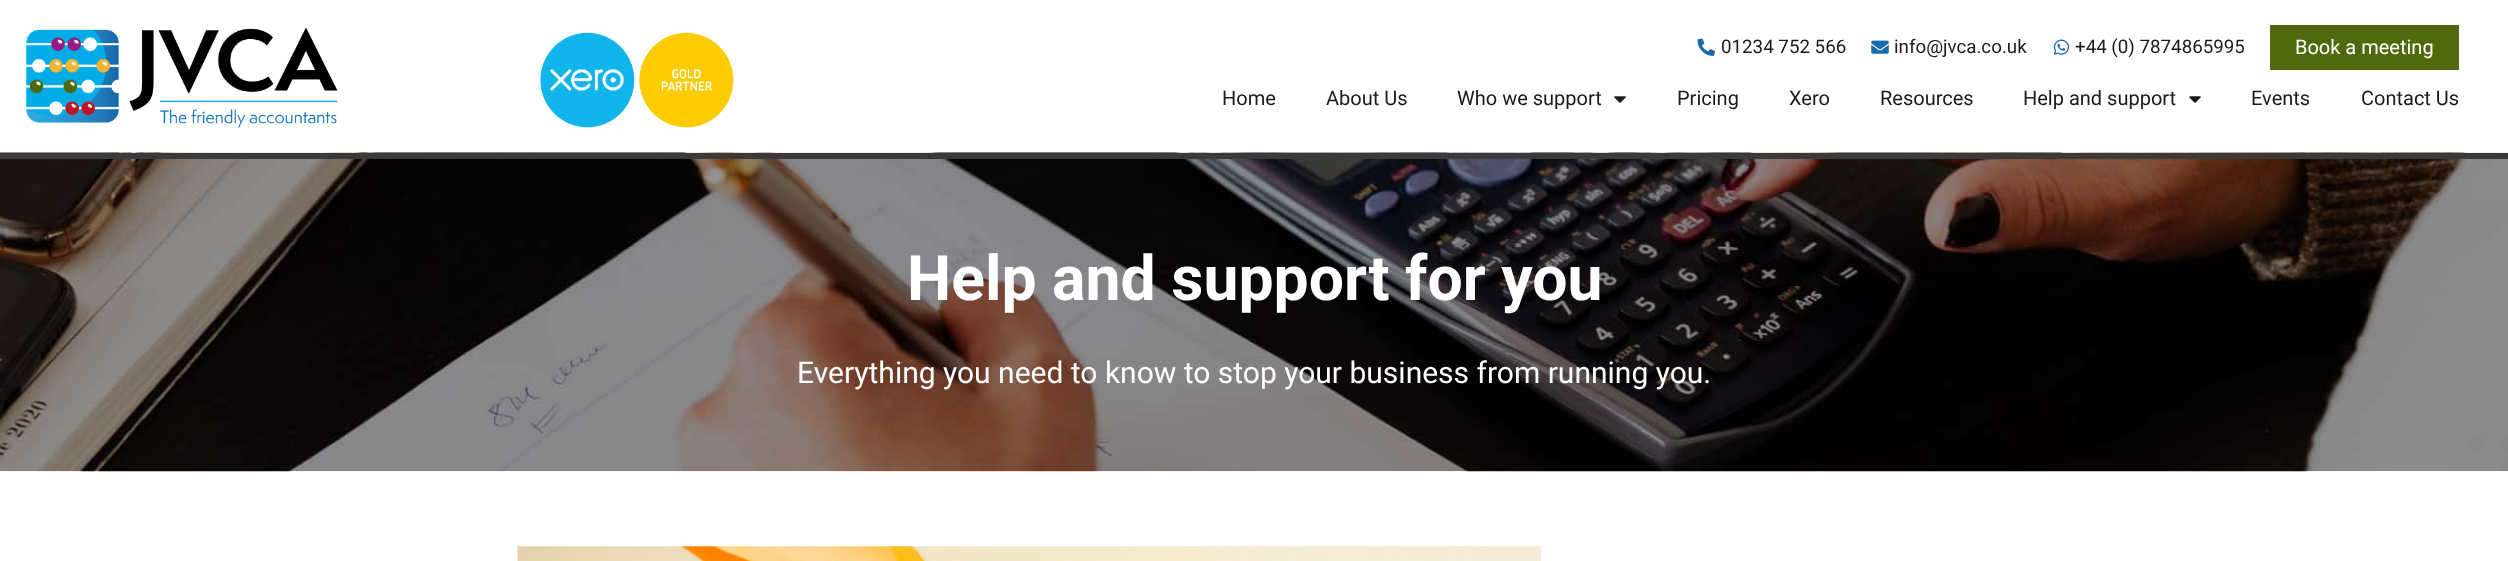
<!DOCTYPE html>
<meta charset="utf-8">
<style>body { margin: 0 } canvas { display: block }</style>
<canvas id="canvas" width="2508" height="561"></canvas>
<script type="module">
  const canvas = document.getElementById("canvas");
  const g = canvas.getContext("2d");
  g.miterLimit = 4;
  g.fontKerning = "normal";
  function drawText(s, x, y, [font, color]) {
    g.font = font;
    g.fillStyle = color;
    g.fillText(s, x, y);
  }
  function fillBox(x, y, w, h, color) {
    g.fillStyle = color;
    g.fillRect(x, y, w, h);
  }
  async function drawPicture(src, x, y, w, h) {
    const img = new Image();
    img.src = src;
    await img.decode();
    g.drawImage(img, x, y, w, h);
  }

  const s1 = ["18.75px Roboto", "#1B1B19"];
  const s2 = ["20px Roboto", "#FFFFFF"];
  const s3 = ["20px Roboto", "#1B1B19"];
  const s4 = ["bold 62.5px Roboto", "#FFFFFF"];
  const s5 = ["30px Roboto", "#FFFFFF"];

  fillBox(0, 0, 2508, 561, "#FFFFFF");
  await drawPicture("pic1.png", 26, 27, 312, 101);
  await drawPicture("pic2.png", 540, 32, 194, 96);
  await drawPicture("pic3.png", 1697, 38, 18, 18);
  drawText("01234 752 566", 1721, 53, s1);
  await drawPicture("pic4.png", 1871, 40, 18, 14);
  drawText("info@jvca.co.uk", 1894, 53, s1);
  await drawPicture("pic5.png", 2053, 39, 16, 16);
  drawText("+44 (0) 7874865995", 2075, 53, s1);
  fillBox(2270, 25, 189, 45, "#51690D");
  drawText("Book a meeting", 2295, 54, s2);
  drawText("Home", 1222, 105, s3);
  drawText("About Us", 1326, 105, s3);
  drawText("Who we support", 1457, 105, s3);
  await drawPicture("pic6.png", 1614, 96, 12, 7);
  drawText("Pricing", 1677, 105, s3);
  drawText("Xero", 1789, 105, s3);
  drawText("Resources", 1880, 105, s3);
  drawText("Help and support", 2023, 105, s3);
  await drawPicture("pic6.png", 2189, 96, 12, 7);
  drawText("Events", 2251, 105, s3);
  drawText("Contact Us", 2361, 105, s3);
  await drawPicture("pic7.png", 0, 152, 2508, 320);
  fillBox(0, 153, 2508, 6, "#3A3A3A");
  drawText("Help and support for you", 907, 300, s4);
  drawText("Everything you need to know to stop your business from running you.", 797, 383, s5);
  await drawPicture("pic8.png", 517, 546, 1025, 15);
</script>
